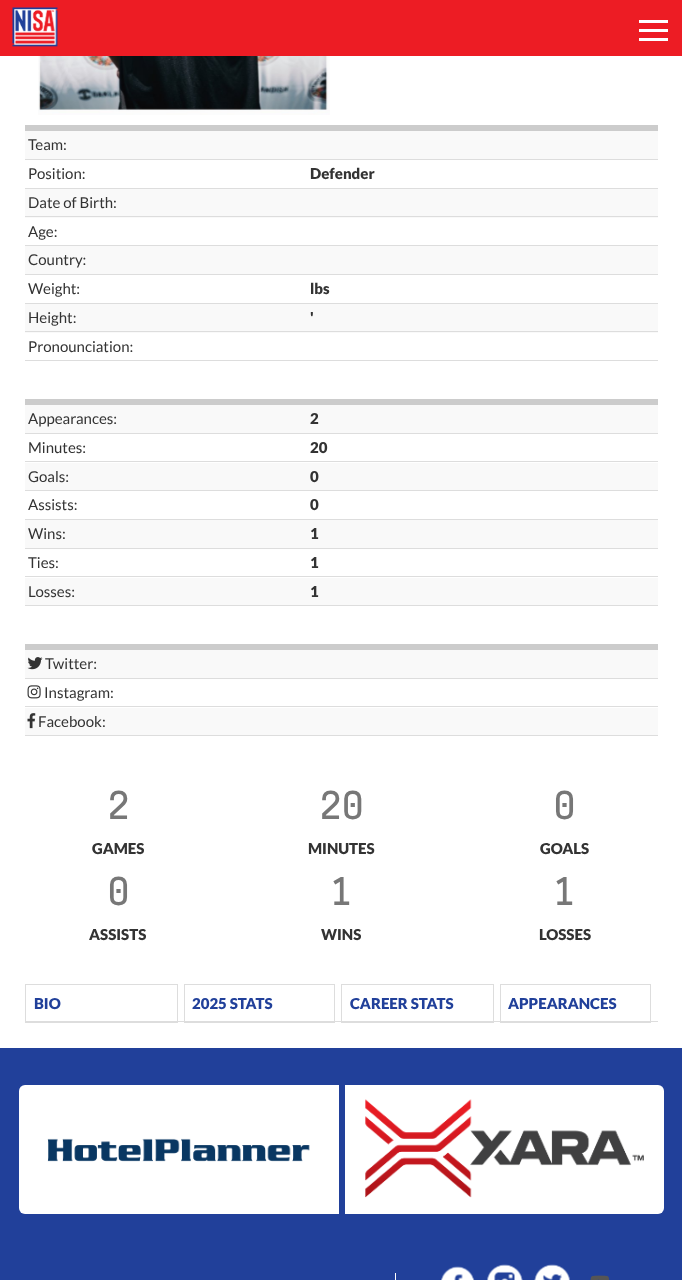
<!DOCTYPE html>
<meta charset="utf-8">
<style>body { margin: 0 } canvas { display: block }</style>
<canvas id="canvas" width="682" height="1280"></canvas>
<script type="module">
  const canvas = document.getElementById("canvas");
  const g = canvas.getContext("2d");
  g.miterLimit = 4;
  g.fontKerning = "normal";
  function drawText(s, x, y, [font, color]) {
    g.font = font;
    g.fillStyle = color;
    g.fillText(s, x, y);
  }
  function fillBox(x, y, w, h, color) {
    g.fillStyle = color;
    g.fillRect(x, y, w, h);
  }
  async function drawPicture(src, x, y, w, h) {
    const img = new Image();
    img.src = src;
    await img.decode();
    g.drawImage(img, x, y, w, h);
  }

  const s1 = ["15px Lato", "#333333"];
  const s2 = ["900 15px Lato", "#333333"];
  const s3 = ["bold 42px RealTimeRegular", "#777777"];
  const s4 = ["900 15px Lato", "#21409A"];

  fillBox(0, 0, 682, 1280, "#FFFFFF");
  fillBox(0, 0, 682, 56, "#ED1C24");
  await drawPicture("pic1.png", 12, 7, 46, 40);
  fillBox(639, 29, 29, 3, "#FFFFFF");
  fillBox(639, 20, 29, 3, "#FFFFFF");
  fillBox(639, 38, 29, 3, "#FFFFFF");
  await drawPicture("pic2.png", 38, 56, 292, 59);
  fillBox(25, 125, 633, 6, "#CCCCCC");
  fillBox(25, 131, 633, 28, "#F9F9F9");
  fillBox(25, 159, 633, 1, "#DDDDDD");
  drawText("Team:", 28, 150, s1);
  fillBox(25, 188, 633, 1, "#DDDDDD");
  drawText("Position:", 28, 179, s1);
  drawText("Defender", 310, 179, s2);
  fillBox(25, 189, 633, 29, "#F9F9F9");
  fillBox(25, 216, 633, 1, "#DDDDDD");
  drawText("Date of Birth:", 28, 208, s1);
  fillBox(25, 245, 633, 1, "#DDDDDD");
  drawText("Age:", 28, 237, s1);
  fillBox(25, 246, 633, 28, "#F9F9F9");
  fillBox(25, 274, 633, 1, "#DDDDDD");
  drawText("Country:", 28, 265, s1);
  fillBox(25, 303, 633, 1, "#DDDDDD");
  drawText("Weight:", 28, 294, s1);
  drawText("lbs", 310, 294, s2);
  fillBox(25, 304, 633, 29, "#F9F9F9");
  fillBox(25, 331, 633, 1, "#DDDDDD");
  drawText("Height:", 28, 323, s1);
  drawText("'", 310, 323, s2);
  fillBox(25, 360, 633, 1, "#DDDDDD");
  drawText("Pronounciation:", 28, 352, s1);
  fillBox(25, 399, 633, 6, "#CCCCCC");
  fillBox(25, 405, 633, 28, "#F9F9F9");
  fillBox(25, 433, 633, 1, "#DDDDDD");
  drawText("Appearances:", 28, 424, s1);
  drawText("2", 310, 424, s2);
  fillBox(25, 461, 633, 1, "#DDDDDD");
  drawText("Minutes:", 28, 453, s1);
  drawText("20", 310, 453, s2);
  fillBox(25, 463, 633, 27, "#F9F9F9");
  fillBox(25, 490, 633, 1, "#DDDDDD");
  drawText("Goals:", 28, 482, s1);
  drawText("0", 310, 482, s2);
  fillBox(25, 519, 633, 1, "#DDDDDD");
  drawText("Assists:", 28, 510, s1);
  drawText("0", 310, 510, s2);
  fillBox(25, 520, 633, 28, "#F9F9F9");
  fillBox(25, 548, 633, 1, "#DDDDDD");
  drawText("Wins:", 28, 539, s1);
  drawText("1", 310, 539, s2);
  fillBox(25, 576, 633, 1, "#DDDDDD");
  drawText("Ties:", 28, 568, s1);
  drawText("1", 310, 568, s2);
  fillBox(25, 578, 633, 27, "#F9F9F9");
  fillBox(25, 605, 633, 1, "#DDDDDD");
  drawText("Losses:", 28, 597, s1);
  drawText("1", 310, 597, s2);
  fillBox(25, 644, 633, 6, "#CCCCCC");
  fillBox(25, 650, 633, 28, "#F9F9F9");
  fillBox(25, 678, 633, 1, "#DDDDDD");
  await drawPicture("pic3.png", 27, 657, 16, 13);
  drawText("Twitter:", 45, 669, s1);
  fillBox(25, 706, 633, 1, "#DDDDDD");
  await drawPicture("pic4.png", 27, 685, 14, 14);
  drawText("Instagram:", 44, 698, s1);
  fillBox(25, 708, 633, 27, "#F9F9F9");
  fillBox(25, 735, 633, 1, "#DDDDDD");
  await drawPicture("pic5.png", 27, 713, 9, 16);
  drawText("Facebook:", 38, 727, s1);
  drawText("2", 107, 819, s3);
  drawText("GAMES", 92, 854, s2);
  drawText("20", 319, 819, s3);
  drawText("MINUTES", 308, 854, s2);
  drawText("0", 553, 819, s3);
  drawText("GOALS", 540, 854, s2);
  drawText("0", 107, 905, s3);
  drawText("ASSISTS", 89, 940, s2);
  drawText("1", 330, 905, s3);
  drawText("WINS", 321, 940, s2);
  drawText("1", 553, 905, s3);
  drawText("LOSSES", 539, 940, s2);
  fillBox(25, 1021, 633, 1, "#DDDDDD");
  g.strokeStyle = "#DDDDDD";
  g.strokeRect(25.5, 984.5, 152, 38);
  drawText("BIO", 34, 1009, s4);
  g.strokeRect(184.5, 984.5, 150, 38);
  drawText("2025 STATS", 192, 1009, s4);
  g.strokeRect(341.5, 984.5, 152, 38);
  drawText("CAREER STATS", 350, 1009, s4);
  g.strokeRect(500.5, 984.5, 150, 38);
  drawText("APPEARANCES", 508, 1009, s4);
  fillBox(0, 1048, 682, 232, "#21409A");
  g.fillStyle = "#FFFFFF";
  g.beginPath();
  g.roundRect(19, 1085, 320, 129, [6, 0, 0, 6]);
  g.fill();
  await drawPicture("pic6.png", 47, 1138, 263, 24);
  g.beginPath();
  g.roundRect(345, 1085, 319, 129, [0, 6, 6, 0]);
  g.fill();
  await drawPicture("pic7.png", 365, 1099, 279, 99);
  fillBox(395, 1273, 1, 7, "#FFFFFF");
  await drawPicture("pic8.png", 441, 1266, 34, 14);
  await drawPicture("pic9.png", 487, 1264, 36, 16);
  await drawPicture("pic10.png", 534, 1264, 36, 16);
  await drawPicture("pic11.png", 590, 1275, 20, 5);
</script>
